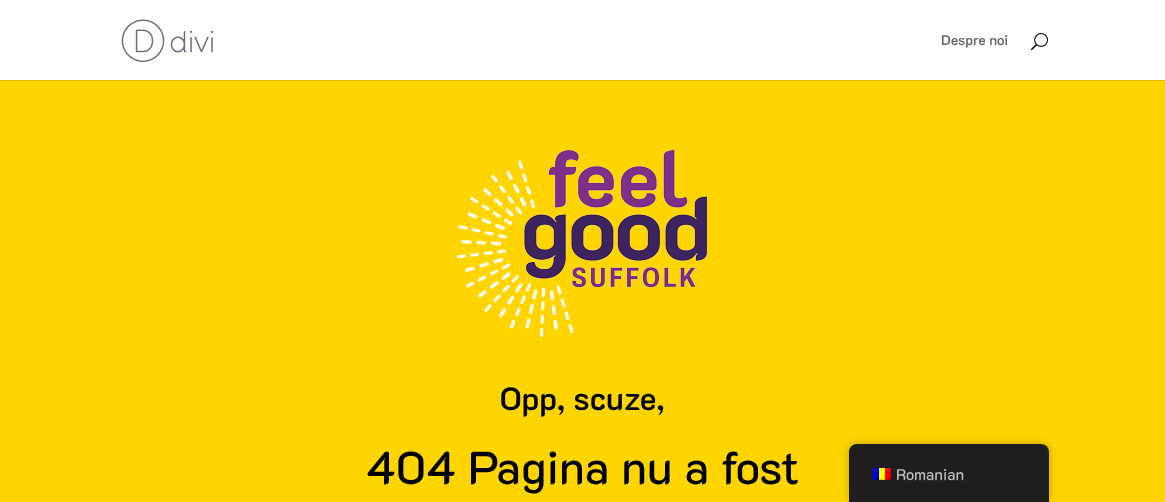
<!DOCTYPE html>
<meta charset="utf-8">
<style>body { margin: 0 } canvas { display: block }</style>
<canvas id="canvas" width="1165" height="502"></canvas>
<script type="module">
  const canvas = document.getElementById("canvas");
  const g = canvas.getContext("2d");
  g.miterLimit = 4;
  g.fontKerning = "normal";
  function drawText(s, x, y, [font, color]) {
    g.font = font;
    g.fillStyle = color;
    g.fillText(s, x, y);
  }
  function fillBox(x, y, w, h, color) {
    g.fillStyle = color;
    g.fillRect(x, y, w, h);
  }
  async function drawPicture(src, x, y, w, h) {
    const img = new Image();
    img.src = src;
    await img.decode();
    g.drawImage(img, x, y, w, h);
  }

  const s1 = ["600 14px 'K2D'", "#666666"];
  const s2 = ["600 32px 'K2D'", "#000000"];
  const s3 = ["500 46px 'K2D'", "#000000"];
  const s4 = ["500 15.5px 'K2D'", "#BDBDBD"];

  fillBox(0, 0, 1165, 502, "#FFFFFF");
  fillBox(0, 80, 1165, 1, "#E6C000");
  await drawPicture("pic1.png", 121, 19, 93, 43);
  drawText("Despre noi", 941, 45, s1);
  await drawPicture("pic2.png", 1031, 33, 17, 18);
  fillBox(0, 81, 1165, 421, "#FFD500");
  await drawPicture("pic3.png", 457, 150, 250, 187);
  drawText("Opp, scuze,", 500, 410, s2);
  drawText("404 Pagina nu a fost", 366, 484, s3);
  g.fillStyle = "rgba(0, 0, 0, 0.25)";
  g.filter = "blur(4px)";
  g.beginPath();
  g.roundRect(849, 444, 200, 58, 8);
  g.fill();
  g.filter = "none";
  g.fillStyle = "#1E1E1E";
  g.beginPath();
  g.roundRect(849, 444, 200, 58, [8, 8, 0, 0]);
  g.fill();
  await drawPicture("pic4.png", 873, 468, 18, 12);
  drawText("Romanian", 896, 480, s4);
</script>
